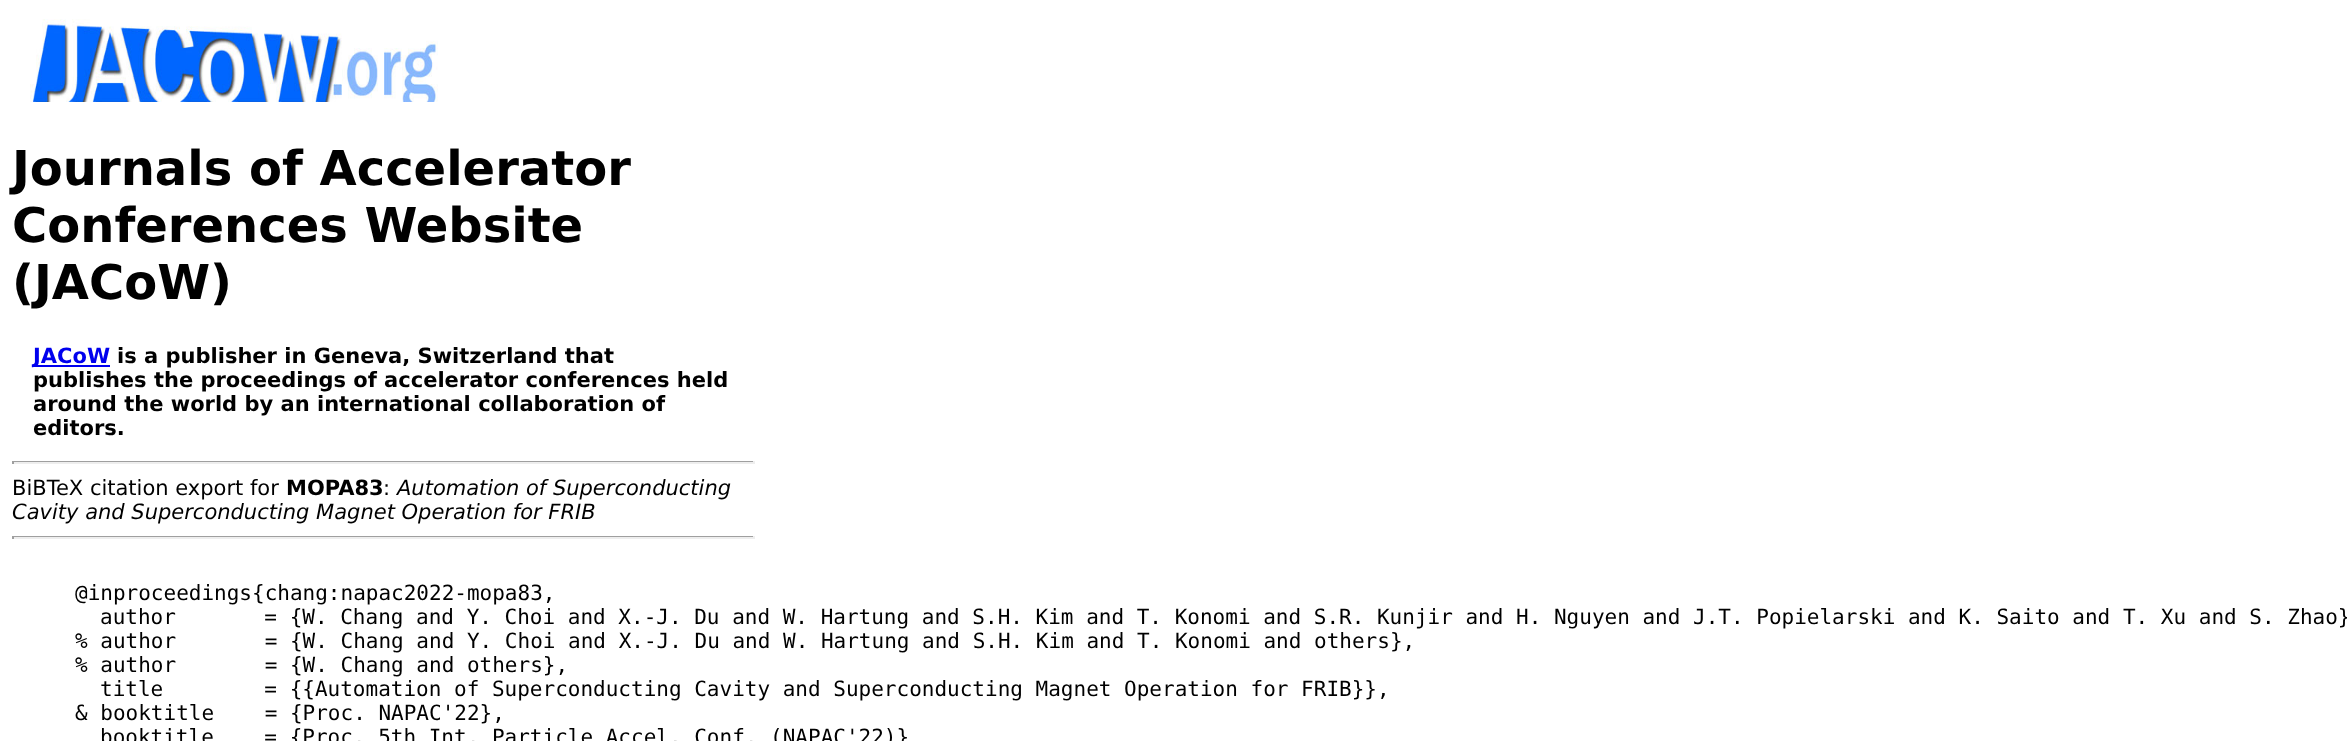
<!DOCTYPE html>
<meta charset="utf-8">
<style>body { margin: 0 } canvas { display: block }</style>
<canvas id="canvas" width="2347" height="741"></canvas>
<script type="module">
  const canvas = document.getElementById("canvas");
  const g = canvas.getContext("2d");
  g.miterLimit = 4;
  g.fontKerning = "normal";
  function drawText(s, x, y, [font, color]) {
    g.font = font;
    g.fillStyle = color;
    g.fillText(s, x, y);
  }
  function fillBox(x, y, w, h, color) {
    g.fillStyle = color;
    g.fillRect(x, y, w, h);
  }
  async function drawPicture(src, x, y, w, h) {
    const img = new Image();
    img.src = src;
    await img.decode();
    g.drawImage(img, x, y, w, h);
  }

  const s1 = ["bold 48px DejaVu Sans", "#000000"];
  const s2 = ["bold 21px DejaVu Sans", "#0000EE"];
  const s3 = ["bold 21px DejaVu Sans", "#000000"];
  const s4 = ["21px DejaVu Sans", "#000000"];
  const s5 = ["italic 21px DejaVu Sans", "#000000"];
  const s6 = ["21px DejaVu Sans Mono", "#000000"];

  fillBox(0, 0, 2347, 741, "#FFFFFF");
  await drawPicture("pic1.png", 30, 19, 408, 83);
  drawText("Journals of Accelerator", 12, 185, s1);
  drawText("Conferences Website", 12, 242, s1);
  drawText("(JACoW)", 12, 299, s1);
  fillBox(33, 365, 77, 2, "#0000EE");
  drawText("JACoW", 33, 363, s2);
  drawText("is a publisher in Geneva, Switzerland that", 117, 363, s3);
  drawText("publishes the proceedings of accelerator conferences held", 33, 387, s3);
  drawText("around the world by an international collaboration of", 33, 411, s3);
  drawText("editors.", 33, 435, s3);
  fillBox(12, 461, 743, 1, "#9F9F9F");
  fillBox(753, 461, 2, 3, "#EEEEEE");
  fillBox(12, 462, 743, 2, "#EEEEEE");
  fillBox(12, 461, 2, 3, "#9F9F9F");
  drawText("BiBTeX citation export for", 12, 495, s4);
  drawText("MOPA83", 286, 495, s3);
  drawText(":", 383, 495, s4);
  drawText("Automation of Superconducting", 397, 495, s5);
  drawText("Cavity and Superconducting Magnet Operation for FRIB", 12, 519, s5);
  fillBox(12, 536, 743, 1, "#9F9F9F");
  fillBox(753, 536, 2, 3, "#EEEEEE");
  fillBox(12, 537, 743, 2, "#EEEEEE");
  fillBox(12, 536, 2, 3, "#9F9F9F");
  drawText("@inproceedings{chang:napac2022-mopa83,", 75, 600, s6);
  drawText("author       = {W. Chang and Y. Choi and X.-J. Du and W. Hartung and S.H. Kim and T. Konomi and S.R. Kunjir and H. Nguyen and J.T. Popielarski and K. Saito and T. Xu and S. Zhao}", 100, 624, s6);
  drawText("% author       = {W. Chang and Y. Choi and X.-J. Du and W. Hartung and S.H. Kim and T. Konomi and others},", 75, 648, s6);
  drawText("% author       = {W. Chang and others},", 75, 672, s6);
  drawText("title        = {{Automation of Superconducting Cavity and Superconducting Magnet Operation for FRIB}},", 100, 696, s6);
  drawText("& booktitle    = {Proc. NAPAC'22},", 75, 720, s6);
  drawText("booktitle    = {Proc. 5th Int. Particle Accel. Conf. (NAPAC'22)}", 100, 744, s6);
</script>
